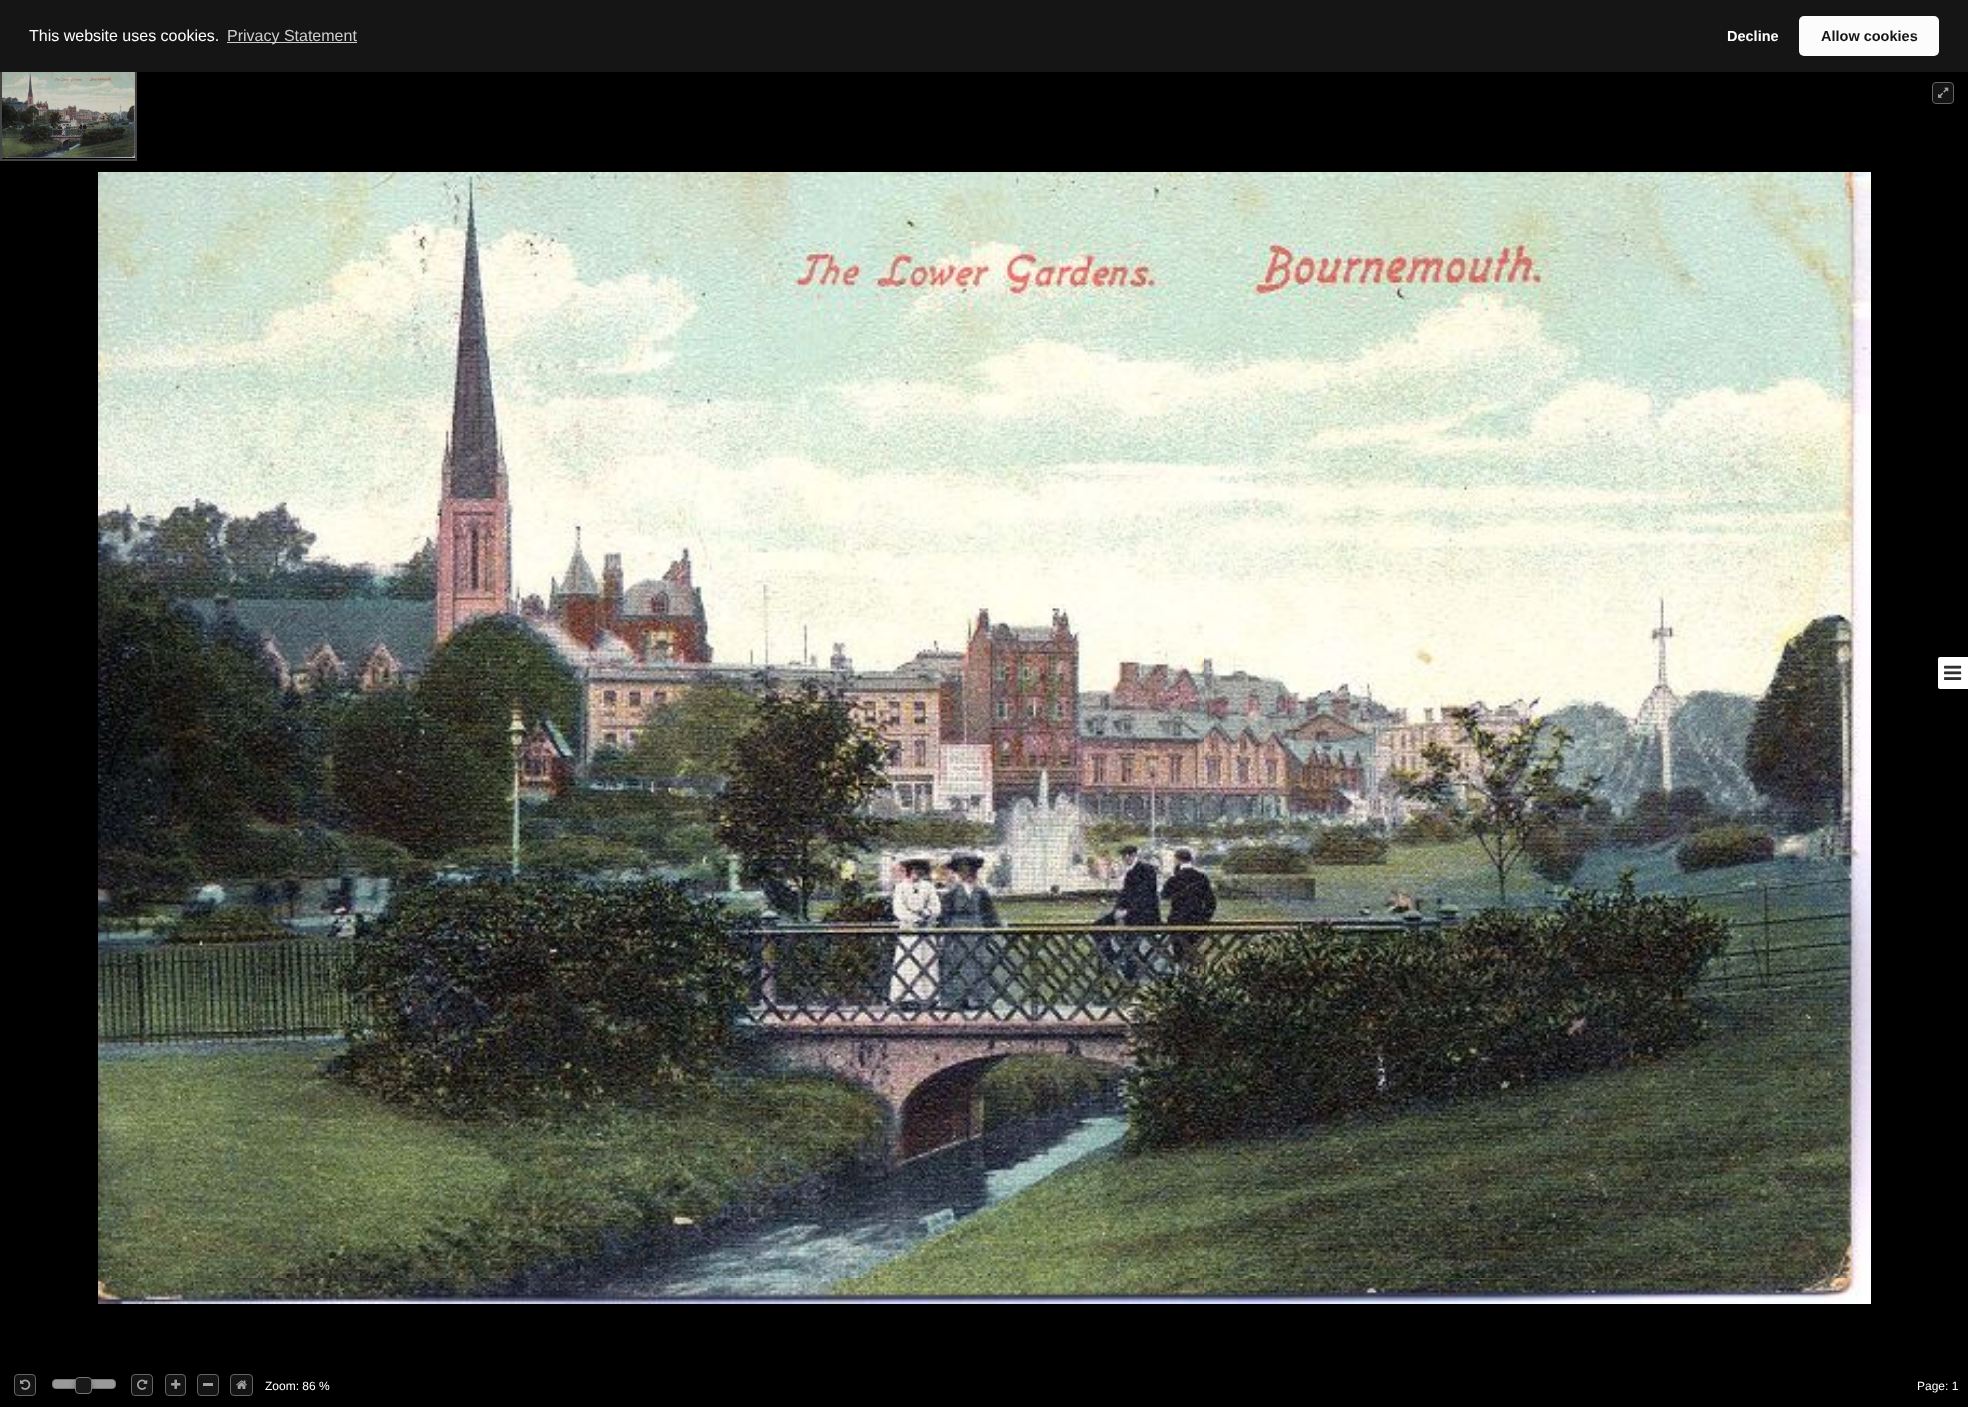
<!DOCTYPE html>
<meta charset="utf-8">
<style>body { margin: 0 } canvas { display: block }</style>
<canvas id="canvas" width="1968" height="1407"></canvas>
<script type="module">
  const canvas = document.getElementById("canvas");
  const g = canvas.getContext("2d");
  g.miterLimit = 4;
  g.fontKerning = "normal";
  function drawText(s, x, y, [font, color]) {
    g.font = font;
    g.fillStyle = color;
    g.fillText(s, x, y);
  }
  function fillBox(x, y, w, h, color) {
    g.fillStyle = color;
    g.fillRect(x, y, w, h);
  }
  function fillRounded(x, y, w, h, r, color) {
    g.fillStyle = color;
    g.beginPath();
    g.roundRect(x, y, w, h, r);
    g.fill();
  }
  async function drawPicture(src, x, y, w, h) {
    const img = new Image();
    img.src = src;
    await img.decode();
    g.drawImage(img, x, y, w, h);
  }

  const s1 = ["16px Liberation Sans", "#FFFFFF"];
  const s2 = ["16px Liberation Sans", "#CECECE"];
  const s3 = ["bold 14.5px Liberation Sans", "#FFFFFF"];
  const s4 = ["bold 14.5px Liberation Sans", "#151515"];
  const s5 = ["12px Liberation Sans", "#FFFFFF"];

  fillBox(0, 0, 1968, 1407, "#000000");
  g.strokeStyle = "#444444";
  g.lineWidth = 2;
  g.strokeRect(1, 69, 135, 91);
  fillBox(0, 0, 1968, 72, "#151515");
  drawText("This website uses cookies.", 29, 41, s1);
  fillBox(227, 42, 130, 1, "#CECECE");
  drawText("Privacy Statement", 227, 41, s2);
  drawText("Decline", 1727, 41, s3);
  fillRounded(1799, 16, 140, 40, 5, "#FCFCFC");
  drawText("Allow cookies", 1821, 41, s4);
  g.fillStyle = "#FFFFFF";
  g.beginPath();
  g.roundRect(1938, 657, 30, 32, [2, 0, 0, 2]);
  g.fill();
  await drawPicture("pic1.png", 1944, 665, 18, 15);
  await drawPicture("pic2.png", 2, 72, 133, 86);
  await drawPicture("pic3.png", 98, 172, 1773, 1132);
  g.fillStyle = "#141414";
  g.beginPath();
  g.roundRect(1932.5, 82.5, 21, 21, 3.5);
  g.fill();
  g.strokeStyle = "#646464";
  g.lineWidth = 1;
  g.stroke();
  await drawPicture("pic4.png", 1938, 87, 11, 11);
  g.beginPath();
  g.roundRect(14.5, 1374.5, 21, 21, 3.5);
  g.fill();
  g.stroke();
  await drawPicture("pic5.png", 20, 1379, 11, 11);
  g.fillStyle = "#999999";
  g.beginPath();
  g.roundRect(52.5, 1379.5, 63, 9, 3.5);
  g.fill();
  g.strokeStyle = "#767676";
  g.stroke();
  g.fillStyle = "rgba(0, 0, 0, 0.35)";
  g.filter = "blur(2.5px)";
  g.beginPath();
  g.roundRect(75, 1381, 17, 17, 4);
  g.fill();
  g.filter = "none";
  g.fillStyle = "#191919";
  g.beginPath();
  g.roundRect(75.5, 1377.5, 16, 16, 3.5);
  g.fill();
  g.stroke();
  g.fillStyle = "#141414";
  g.beginPath();
  g.roundRect(131.5, 1374.5, 21, 21, 3.5);
  g.fill();
  g.strokeStyle = "#646464";
  g.stroke();
  await drawPicture("pic6.png", 137, 1379, 11, 11);
  g.beginPath();
  g.roundRect(165.5, 1374.5, 20, 21, 3.5);
  g.fill();
  g.stroke();
  await drawPicture("pic7.png", 171, 1379, 10, 10);
  g.beginPath();
  g.roundRect(197.5, 1374.5, 21, 21, 3.5);
  g.fill();
  g.stroke();
  fillBox(203, 1383, 10, 3, "#A1A1A1");
  g.fillStyle = "#141414";
  g.beginPath();
  g.roundRect(230.5, 1374.5, 22, 21, 3.5);
  g.fill();
  g.stroke();
  await drawPicture("pic8.png", 236, 1380, 11, 9);
  drawText("Zoom: 86 %", 265, 1390, s5);
  drawText("Page: 1", 1917, 1390, s5);
</script>
